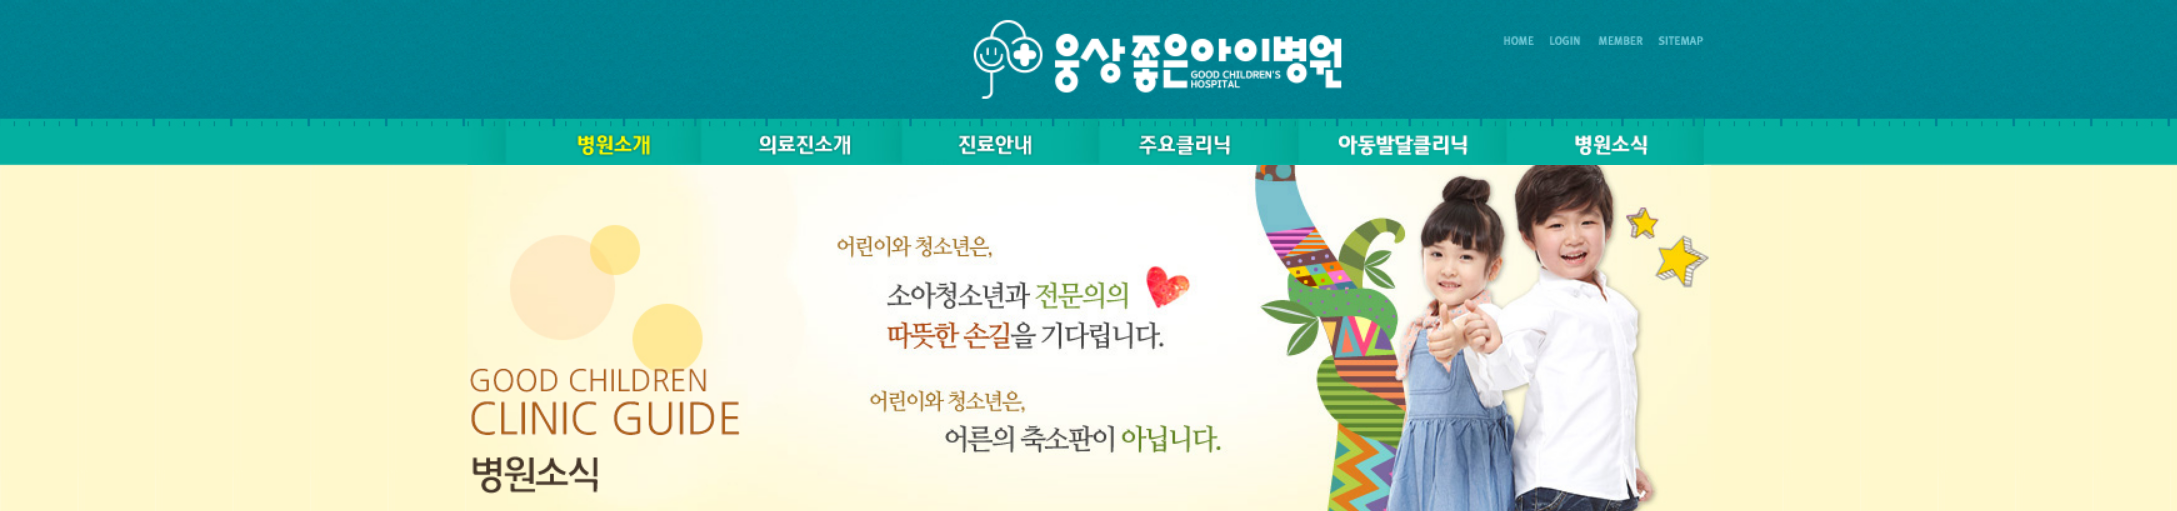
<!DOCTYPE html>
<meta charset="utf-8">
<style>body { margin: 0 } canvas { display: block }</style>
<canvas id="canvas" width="2177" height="511"></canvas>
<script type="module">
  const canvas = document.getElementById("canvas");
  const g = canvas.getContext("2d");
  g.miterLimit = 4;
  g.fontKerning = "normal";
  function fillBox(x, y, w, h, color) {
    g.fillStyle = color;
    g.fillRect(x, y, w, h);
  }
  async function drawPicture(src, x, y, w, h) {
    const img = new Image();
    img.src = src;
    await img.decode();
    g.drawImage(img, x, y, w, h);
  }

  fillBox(0, 0, 2177, 511, "#FFFFFF");
  await drawPicture("pic1.png", 0, 0, 2177, 511);
  await drawPicture("pic2.png", 467, 0, 1237, 165);
  await drawPicture("pic3.png", 971, 19, 373, 82);
  await drawPicture("pic4.png", 1498, 36, 46, 9);
  await drawPicture("pic5.png", 1545, 36, 46, 9);
  await drawPicture("pic6.png", 1592, 36, 59, 9);
  await drawPicture("pic7.png", 1651, 36, 60, 9);
  await drawPicture("pic8.png", 575, 133, 77, 25);
  await drawPicture("pic9.png", 757, 133, 96, 24);
  await drawPicture("pic10.png", 957, 133, 77, 24);
  await drawPicture("pic11.png", 1137, 133, 95, 24);
  await drawPicture("pic12.png", 1337, 134, 131, 23);
  await drawPicture("pic13.png", 1574, 134, 74, 22);
  await drawPicture("pic14.png", 467, 165, 1245, 346);
  await drawPicture("pic15.png", 468, 366, 272, 128);
</script>
